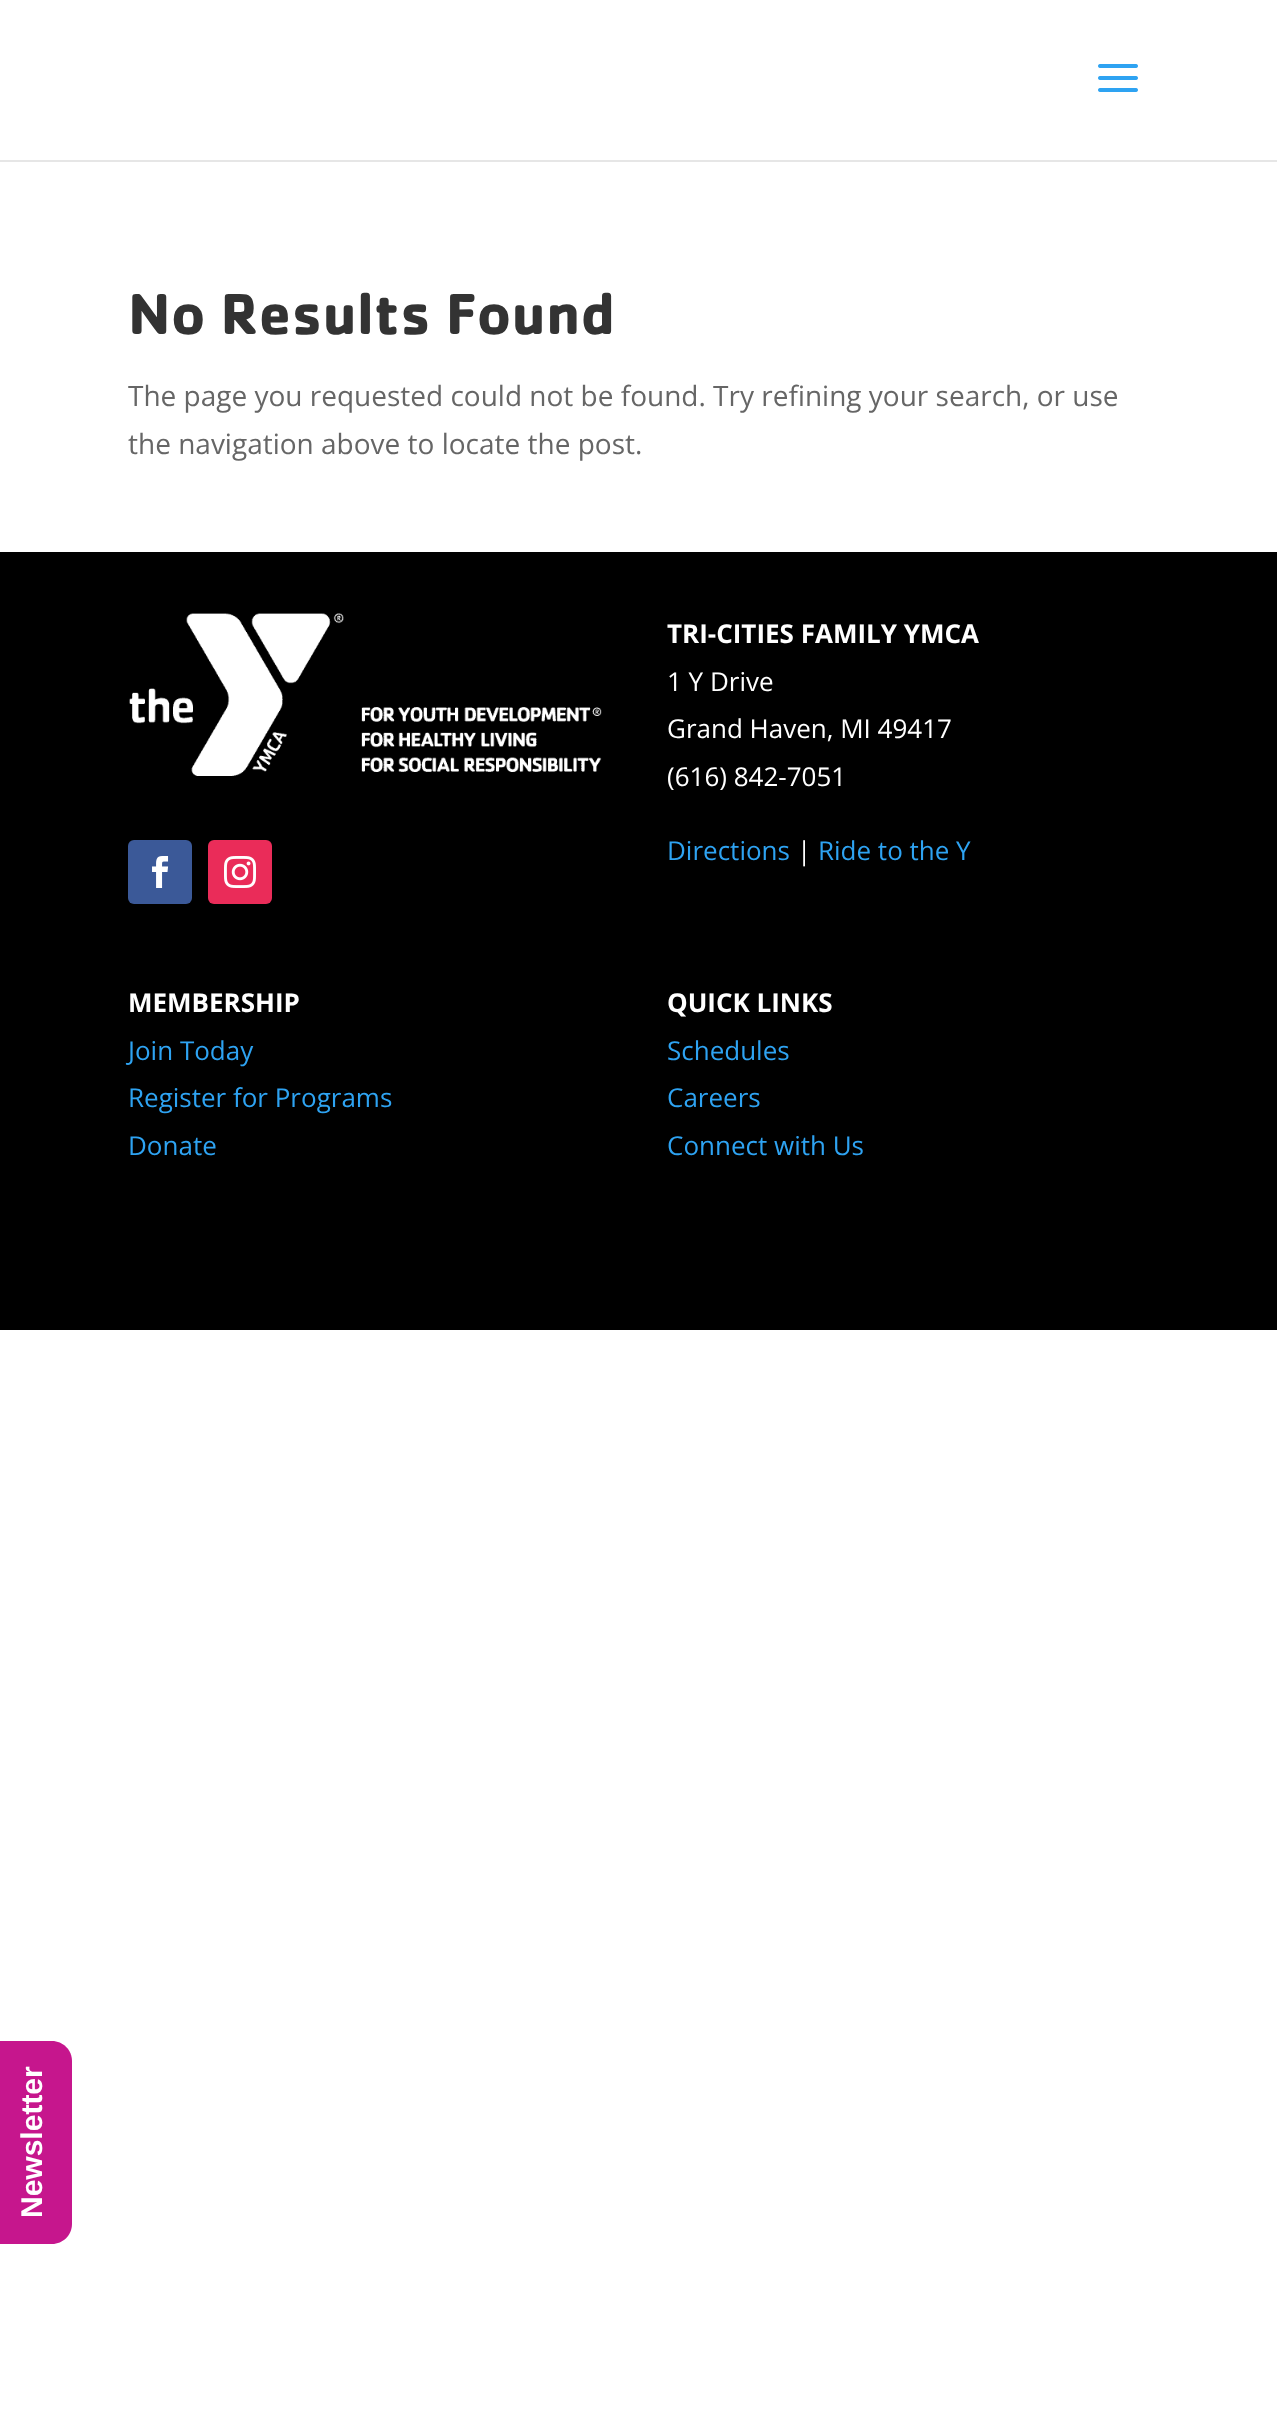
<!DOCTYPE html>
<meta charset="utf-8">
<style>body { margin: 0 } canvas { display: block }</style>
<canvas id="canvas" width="1277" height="2419"></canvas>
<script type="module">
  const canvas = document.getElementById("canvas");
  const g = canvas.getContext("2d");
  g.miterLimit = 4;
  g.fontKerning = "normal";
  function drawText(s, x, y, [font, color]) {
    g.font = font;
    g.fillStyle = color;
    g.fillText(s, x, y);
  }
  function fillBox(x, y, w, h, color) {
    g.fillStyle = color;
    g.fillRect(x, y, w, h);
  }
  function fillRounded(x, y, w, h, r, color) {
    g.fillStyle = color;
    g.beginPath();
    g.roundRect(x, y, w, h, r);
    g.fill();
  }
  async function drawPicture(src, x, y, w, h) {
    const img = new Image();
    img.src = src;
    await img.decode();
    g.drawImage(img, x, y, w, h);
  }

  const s1 = ["bold 60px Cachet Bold", "#333333"];
  const s2 = ["28px Open Sans", "#666666"];
  const s3 = ["bold 26px Open Sans", "#FFFFFF"];
  const s4 = ["26px Open Sans", "#FFFFFF"];
  const s5 = ["26px Open Sans", "#2EA3F2"];

  fillBox(0, 0, 1277, 2419, "#FFFFFF");
  fillBox(0, 160, 1277, 2, "#E6E6E6");
  await drawPicture("pic1.png", 1098, 64, 40, 28);
  drawText("No Results Found", 128, 334, s1);
  drawText("The page you requested could not be found. Try refining your search, or use", 128, 406, s2);
  drawText("the navigation above to locate the post.", 128, 454, s2);
  fillBox(0, 552, 1277, 778, "#000000");
  await drawPicture("pic2.png", 129, 613, 473, 163);
  fillRounded(128, 840, 64, 64, 6, "#3B5998");
  await drawPicture("pic3.png", 152, 856, 17, 32);
  fillRounded(208, 840, 64, 64, 6, "#EA2C59");
  await drawPicture("pic4.png", 224, 856, 32, 32);
  drawText("TRI-CITIES FAMILY YMCA", 667, 643, s3);
  drawText("1 Y Drive", 667, 691, s4);
  drawText("Grand Haven, MI 49417", 667, 738, s4);
  drawText("(616) 842-7051", 667, 786, s4);
  drawText("Directions", 667, 860, s5);
  drawText("|", 797, 860, s4);
  drawText("Ride to the Y", 818, 860, s5);
  drawText("MEMBERSHIP", 128, 1012, s3);
  drawText("Join Today", 128, 1060, s5);
  drawText("Register for Programs", 128, 1107, s5);
  drawText("Donate", 128, 1155, s5);
  drawText("QUICK LINKS", 667, 1012, s3);
  drawText("Schedules", 667, 1060, s5);
  drawText("Careers", 667, 1107, s5);
  drawText("Connect with Us", 667, 1155, s5);
  g.fillStyle = "#C6168D";
  g.beginPath();
  g.moveTo(-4, 2244);
  g.lineTo(-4, 2041);
  g.lineTo(52, 2041);
  g.bezierCurveTo(63, 2041, 72, 2050, 72, 2061);
  g.lineTo(72, 2224);
  g.bezierCurveTo(72, 2235, 63, 2244, 52, 2244);
  g.closePath();
  g.fill();
  g.font = "bold 30px Liberation Sans";
  g.fillStyle = "#FFFFFF";
  g.save();
  g.translate(42, 2218);
  g.rotate(-90 * Math.PI / 180);
  g.fillText("Newsletter", 0, 0);
  g.restore();
</script>
